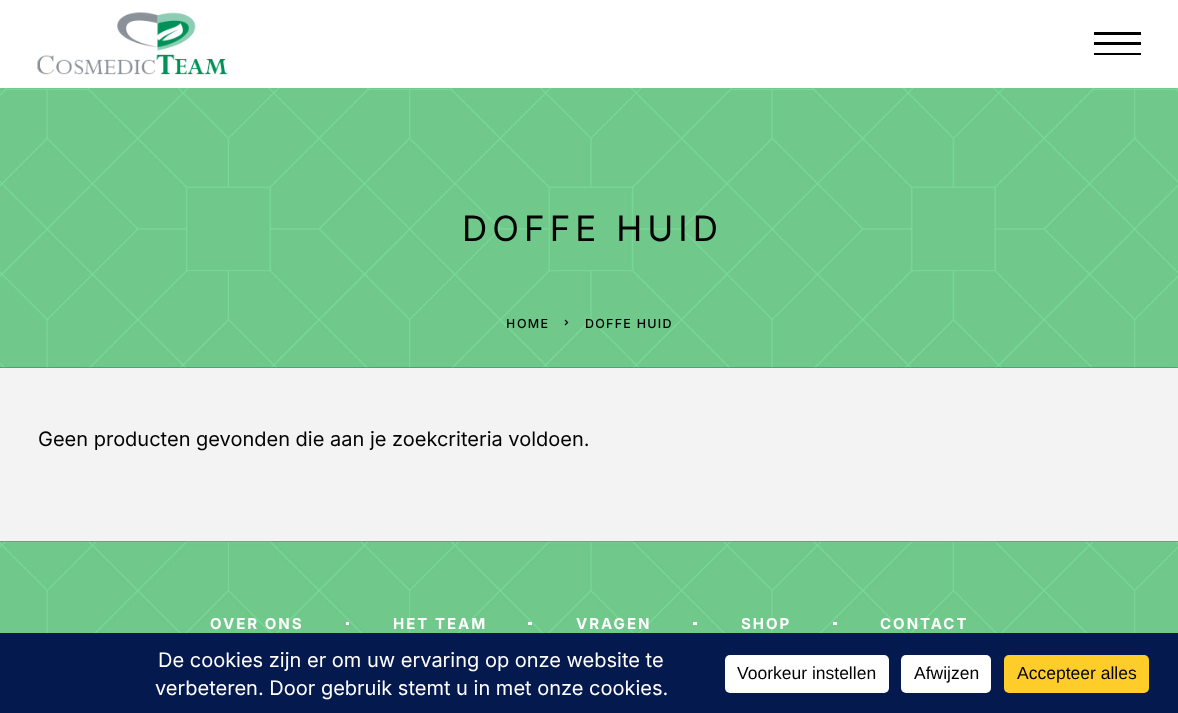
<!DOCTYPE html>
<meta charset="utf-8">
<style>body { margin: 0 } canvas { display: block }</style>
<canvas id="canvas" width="1178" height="713"></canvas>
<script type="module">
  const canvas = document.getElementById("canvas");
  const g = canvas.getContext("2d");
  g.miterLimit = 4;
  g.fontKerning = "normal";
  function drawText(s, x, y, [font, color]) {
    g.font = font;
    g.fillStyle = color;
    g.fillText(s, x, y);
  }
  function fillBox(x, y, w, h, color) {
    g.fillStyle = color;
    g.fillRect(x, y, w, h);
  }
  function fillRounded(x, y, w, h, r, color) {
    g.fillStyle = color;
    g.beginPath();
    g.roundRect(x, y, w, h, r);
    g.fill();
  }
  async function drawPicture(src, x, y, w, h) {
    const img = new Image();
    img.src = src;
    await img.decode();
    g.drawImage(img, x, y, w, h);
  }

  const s1 = ["35px Inter", "#020202"];
  const s2 = ["500 12.5px Noto Sans", "#020202"];
  const s3 = ["500 12.5px Inter", "#020202"];
  const s4 = ["20px Inter", "#020202"];
  const s5 = ["bold 15px Inter", "#FFFFFF"];
  const s6 = ["20px Inter", "#FFFFFF"];
  const s7 = ["17.5px Liberation Sans", "#020202"];

  fillBox(0, 0, 1178, 713, "#F3F3F3");
  fillBox(0, 0, 1178, 88, "#FFFFFF");
  await drawPicture("pic1.png", 37, 12, 191, 63);
  g.fillStyle = "#000000";
  g.beginPath();
  g.moveTo(1141, 53);
  g.lineTo(1141, 55);
  g.lineTo(1094, 55);
  g.lineTo(1094, 53);
  g.closePath();
  g.moveTo(1141, 42);
  g.lineTo(1141, 45);
  g.lineTo(1094, 45);
  g.lineTo(1094, 42);
  g.closePath();
  g.moveTo(1141, 32);
  g.lineTo(1141, 35);
  g.lineTo(1094, 35);
  g.lineTo(1094, 32);
  g.closePath();
  g.fill();
  fillBox(0, 367, 1178, 1, "#009158");
  await drawPicture("pic2.png", 0, 88, 1178, 280);
  g.letterSpacing = "5px";
  drawText("DOFFE HUID", 462, 241, s1);
  g.letterSpacing = "1.25px";
  drawText("H", 506, 328, s2);
  drawText("OME", 517, 328, s3);
  await drawPicture("pic3.png", 564, 319, 5, 7);
  drawText("DOFFE HUID", 585, 328, s3);
  g.letterSpacing = "0px";
  drawText("Geen producten gevonden die aan je zoekcriteria voldoen.", 38, 446, s4);
  fillBox(0, 541, 1178, 1, "#248F5C");
  await drawPicture("pic4.png", 0, 541, 1178, 92);
  g.letterSpacing = "2px";
  drawText("OVER ONS", 210, 629, s5);
  fillBox(346, 622, 3, 3, "#FFFFFF");
  drawText("HET TEAM", 393, 629, s5);
  fillBox(528, 622, 4, 3, "#FFFFFF");
  drawText("VRAGEN", 576, 629, s5);
  fillBox(693, 622, 4, 3, "#FFFFFF");
  drawText("SHOP", 741, 629, s5);
  fillBox(833, 622, 4, 3, "#FFFFFF");
  drawText("CONTACT", 880, 629, s5);
  fillBox(0, 633, 1178, 80, "#04194E");
  g.letterSpacing = "0px";
  drawText("De cookies zijn er om uw ervaring op onze website te", 158, 667, s6);
  drawText("verbeteren. Door gebruik stemt u in met onze cookies.", 155, 695, s6);
  fillRounded(725, 655, 164, 38, 5, "#FFFFFF");
  drawText("Voorkeur instellen", 737, 679, s7);
  fillRounded(901, 655, 90, 38, 5, "#FFFFFF");
  drawText("Afwijzen", 914, 679, s7);
  fillRounded(1004, 655, 145, 38, 5, "#FFCD2A");
  drawText("Accepteer alles", 1017, 679, s7);
</script>
